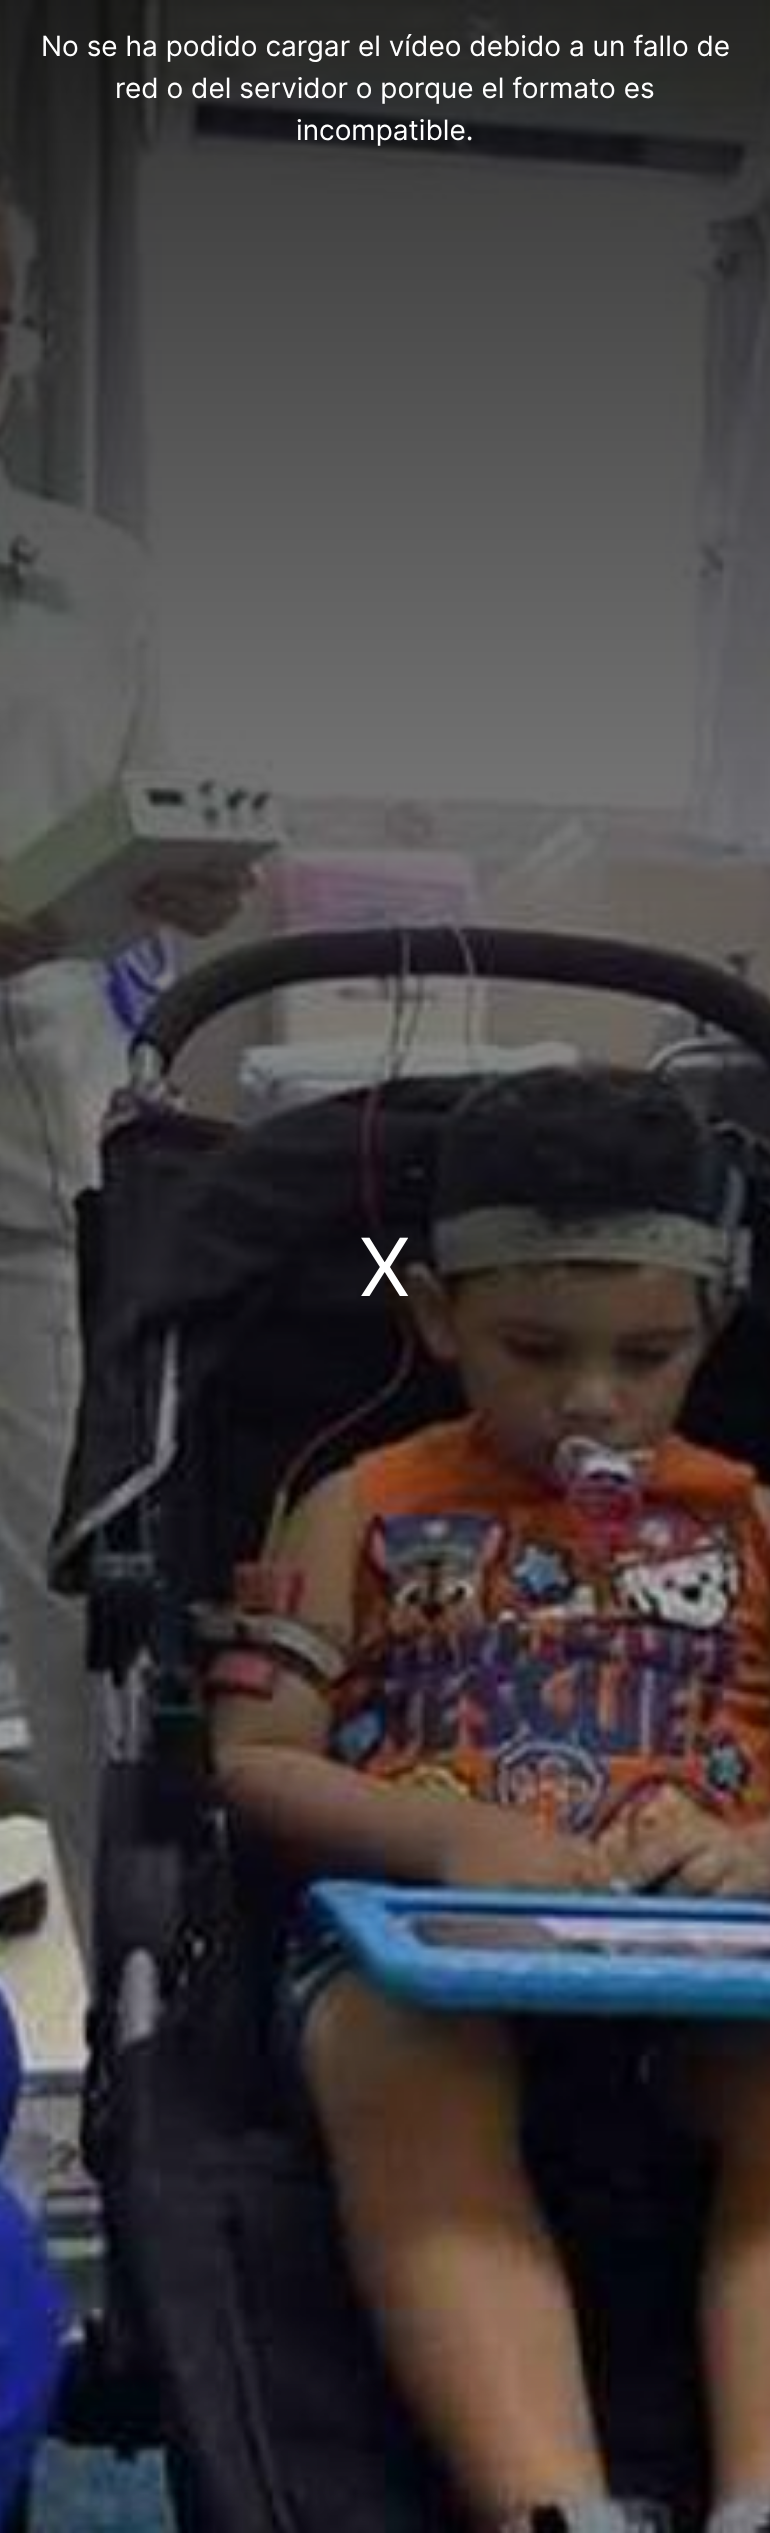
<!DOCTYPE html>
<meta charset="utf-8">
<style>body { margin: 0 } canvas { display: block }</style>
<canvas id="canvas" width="770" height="2533"></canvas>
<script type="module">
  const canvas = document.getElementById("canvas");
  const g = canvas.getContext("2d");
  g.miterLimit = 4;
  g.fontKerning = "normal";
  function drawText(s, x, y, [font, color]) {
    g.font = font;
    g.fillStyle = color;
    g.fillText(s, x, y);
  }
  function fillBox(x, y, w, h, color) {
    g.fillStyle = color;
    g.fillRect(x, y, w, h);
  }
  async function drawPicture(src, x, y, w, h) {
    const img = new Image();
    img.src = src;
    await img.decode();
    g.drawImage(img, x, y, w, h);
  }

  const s1 = ["28px Inter", "#FFFFFF"];
  const s2 = ["80px Inter", "#FFFFFF"];

  fillBox(0, 0, 770, 2533, "#FFFFFF");
  await drawPicture("pic1.png", 0, 0, 770, 2533);
  drawText("No se ha podido cargar el vídeo debido a un fallo de", 41, 56, s1);
  drawText("red o del servidor o porque el formato es", 115, 98, s1);
  drawText("incompatible.", 296, 140, s1);
  drawText("X", 359, 1296, s2);
</script>
